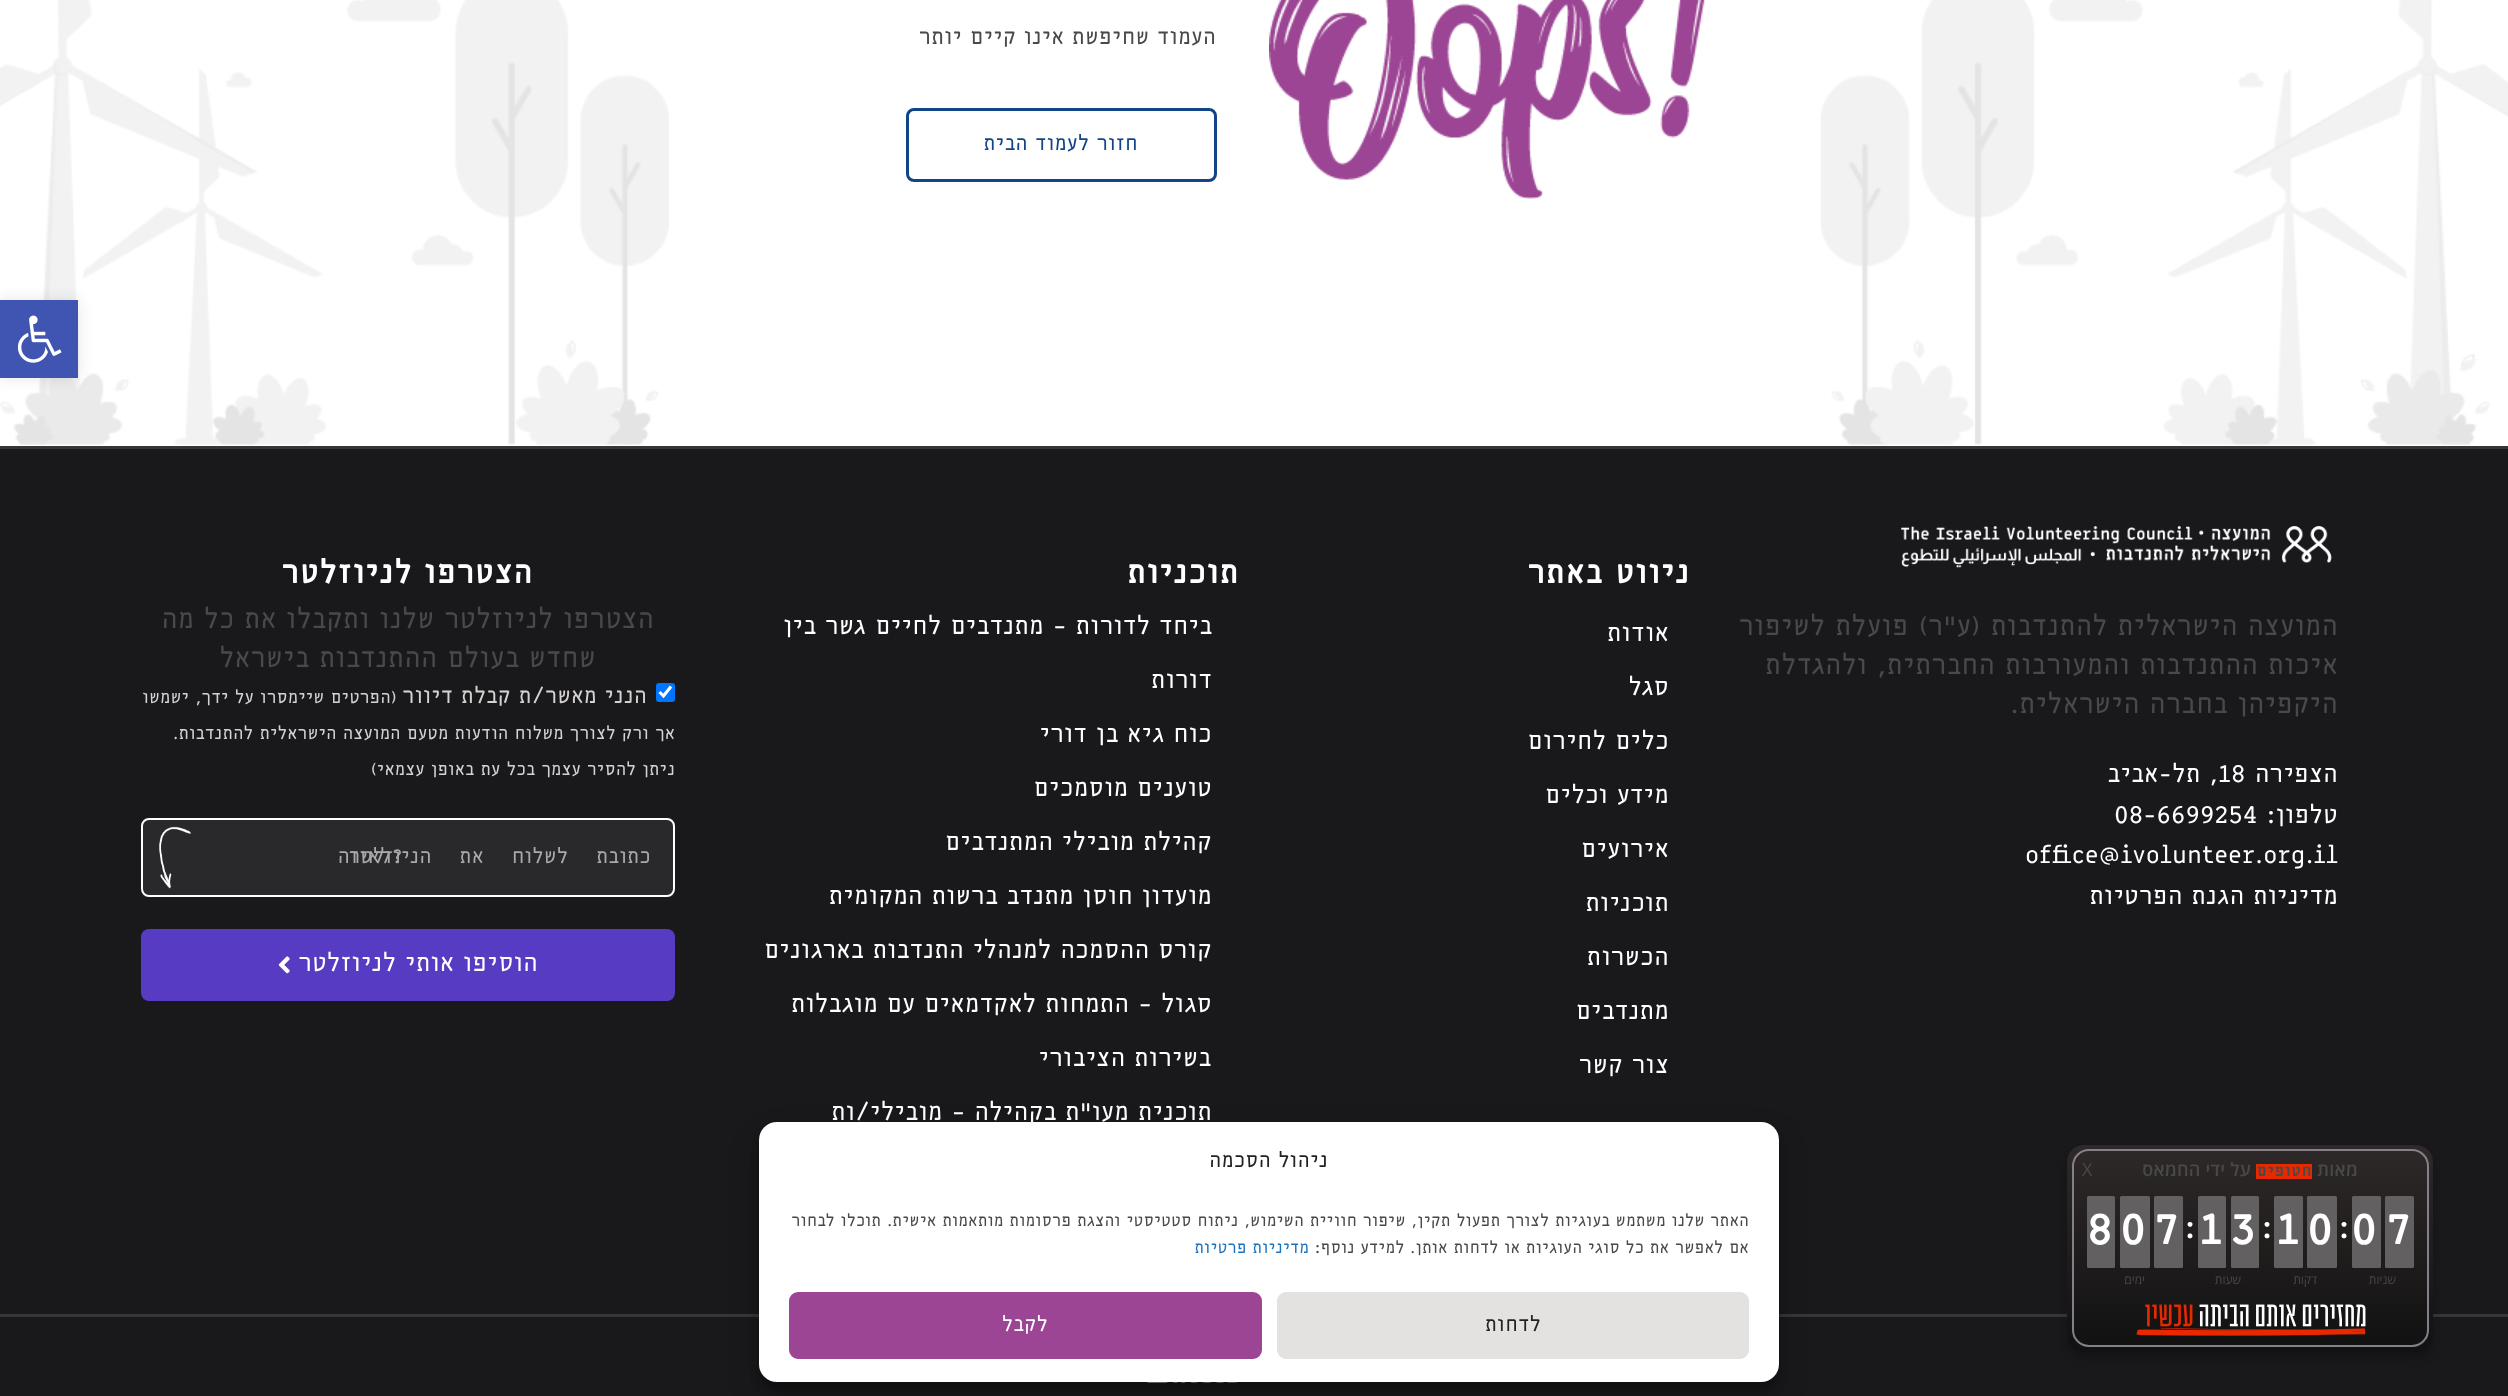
<!DOCTYPE html>
<meta charset="utf-8">
<style>body { margin: 0 } canvas { display: block }</style>
<canvas id="canvas" width="2508" height="1396"></canvas>
<script type="module">
  const canvas = document.getElementById("canvas");
  const g = canvas.getContext("2d");
  g.miterLimit = 4;
  g.fontKerning = "normal";
  function drawText(s, x, y, [font, color]) {
    g.font = font;
    g.fillStyle = color;
    g.fillText(s, x, y);
  }
  function fillBox(x, y, w, h, color) {
    g.fillStyle = color;
    g.fillRect(x, y, w, h);
  }
  function fillRounded(x, y, w, h, r, color) {
    g.fillStyle = color;
    g.beginPath();
    g.roundRect(x, y, w, h, r);
    g.fill();
  }
  async function drawPicture(src, x, y, w, h) {
    const img = new Image();
    img.src = src;
    await img.decode();
    g.drawImage(img, x, y, w, h);
  }
  let gradient;

  const s1 = ["24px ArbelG", "#494949"];
  const s2 = ["22.5px ArbelG", "#124587"];
  const s3 = ["bold 36px ArbelG", "#FFFFFF"];
  const s4 = ["30px ArbelG", "#494949"];
  const s5 = ["24px ArbelG", "#D6D2D2"];
  const s6 = ["19.2px ArbelG", "#D6D2D2"];
  const s7 = ["22.5px ArbelG", "#A9A9AB"];
  const s8 = ["27px ArbelG", "#FFFFFF"];
  const s9 = ["600 18px Open Sans", "#494949"];
  const s10 = ["bold 18px ArbelG", "#494949"];
  const s11 = ["18px Open Sans", "#494949"];
  const s12 = ["bold 48px ArbelG", "#FFFFFF"];
  const s13 = ["12px Open Sans", "#494949"];
  const s14 = ["36px ArbelG", "#FFFFFF"];
  const s15 = ["22.5px ArbelG", "#222222"];
  const s16 = ["18px ArbelG", "#494949"];
  const s17 = ["18px ArbelG", "#1E73BE"];
  const s18 = ["22.5px ArbelG", "#FFFFFF"];

  fillBox(0, 0, 2508, 1396, "#FFFFFF");
  await drawPicture("pic1.png", 0, 0, 2508, 445);
  await drawPicture("pic2.png", 1269, 0, 436, 199);
  g.direction = "rtl";
  drawText("העמוד שחיפשת אינו קיים יותר", 1216, 44, s1);
  g.beginPath();
  g.roundRect(907.5, 109.5, 308, 71, 6.5);
  g.strokeStyle = "#124587";
  g.lineWidth = 3;
  g.stroke();
  drawText("חזור לעמוד הבית", 1138, 150, s2);
  g.fillStyle = "rgba(0, 0, 0, 0.1)";
  g.filter = "blur(7.5px)";
  g.beginPath();
  g.rect(0, 300, 78, 78);
  g.fill();
  g.filter = "none";
  fillBox(0, 300, 78, 78, "#4054B2");
  await drawPicture("pic3.png", 17, 315, 45, 48);
  fillBox(0, 449, 2508, 865, "#19191C");
  fillBox(0, 446, 2508, 3, "#363636");
  drawText("הצטרפו לניוזלטר", 533, 583, s3);
  drawText("הצטרפו לניוזלטר שלנו ותקבלו את כל מה", 654, 628, s4);
  drawText("שחדש בעולם ההתנדבות בישראל", 596, 667, s4);
  fillRounded(656, 683, 19, 19, 3, "#0075FF");
  g.beginPath();
  g.moveTo(659.5, 692);
  g.lineTo(663.5, 696);
  g.lineTo(671, 686.5);
  g.strokeStyle = "#FFFFFF";
  g.lineWidth = 3.1;
  g.stroke();
  drawText("הנני מאשר/ת קבלת דיוור", 647, 703, s5);
  drawText("(הפרטים שיימסרו על ידך, ישמשו", 397, 703, s6);
  drawText("אך ורק לצורך משלוח הודעות מטעם המועצה הישראלית להתנדבות.", 675, 739, s6);
  drawText("ניתן להסיר עצמך בכל עת באופן עצמאי)", 675, 775, s6);
  g.fillStyle = "#29292C";
  g.beginPath();
  g.roundRect(142, 819, 532, 77, 7);
  g.fill();
  g.lineWidth = 2;
  g.stroke();
  drawText("?לאיזה", 403, 863, s7);
  g.wordSpacing = "20.5px";
  drawText("כתובת לשלוח את הניוזלטר", 651, 863, s7);
  fillRounded(141, 929, 534, 72, 8, "#573BC2");
  g.wordSpacing = "0px";
  drawText("הוסיפו אותי לניוזלטר", 538, 971, s8);
  await drawPicture("pic4.png", 278, 956, 12, 18);
  await drawPicture("pic5.png", 159, 826, 32, 63);
  fillBox(0, 1317, 2508, 79, "#19191C");
  fillBox(0, 1314, 2508, 3, "#363636");
  g.fillStyle = "rgba(0, 0, 0, 0.2)";
  g.filter = "blur(4px)";
  g.beginPath();
  g.roundRect(2067, 1152, 366, 207, 17);
  g.fill();
  g.filter = "none";
  gradient = g.createLinearGradient(2250, 1145, 2250, 1352);
  gradient.addColorStop(0, "#2F2929");
  gradient.addColorStop(1, "#111111");
  g.fillStyle = gradient;
  g.beginPath();
  g.roundRect(2067, 1145, 366, 207, 17);
  g.fill();
  g.beginPath();
  g.roundRect(2073, 1150, 355, 196, 16);
  g.strokeStyle = "#867F8A";
  g.stroke();
  g.letterSpacing = "0.25px";
  drawText("מאות", 2358, 1176, s9);
  fillBox(2256, 1164, 56, 15, "#E82900");
  drawText("חטופים", 2312, 1176, s10);
  drawText("על ידי החמאס", 2251, 1176, s9);
  g.letterSpacing = "0px";
  g.direction = "ltr";
  drawText("X", 2082, 1176, s11);
  fillRounded(2385, 1196, 29, 72, 1.5, "#626060");
  drawText("7", 2387, 1244, s12);
  fillRounded(2352, 1196, 29, 72, 1.5, "#626060");
  drawText("0", 2351, 1244, s12);
  g.direction = "rtl";
  drawText("שניות", 2396, 1284, s13);
  g.direction = "ltr";
  drawText(":", 2338, 1238, s14);
  fillRounded(2307, 1196, 30, 72, 1.5, "#626060");
  drawText("0", 2307, 1244, s12);
  fillRounded(2274, 1196, 29, 72, 1.5, "#626060");
  drawText("1", 2276, 1244, s12);
  g.direction = "rtl";
  drawText("דקות", 2317, 1284, s13);
  g.direction = "ltr";
  drawText(":", 2261, 1238, s14);
  fillRounded(2231, 1196, 28, 72, 1.5, "#626060");
  drawText("3", 2231, 1244, s12);
  fillRounded(2198, 1196, 28, 72, 1.5, "#626060");
  drawText("1", 2199, 1244, s12);
  g.direction = "rtl";
  drawText("שעות", 2241, 1284, s13);
  g.direction = "ltr";
  drawText(":", 2184, 1238, s14);
  fillRounded(2154, 1196, 29, 72, 1.5, "#626060");
  drawText("7", 2155, 1244, s12);
  fillRounded(2120, 1196, 30, 72, 1.5, "#626060");
  drawText("0", 2120, 1244, s12);
  fillRounded(2087, 1196, 28, 72, 1.5, "#626060");
  drawText("8", 2087, 1244, s12);
  g.direction = "rtl";
  drawText("ימים", 2145, 1284, s13);
  await drawPicture("pic6.png", 2136, 1304, 230, 32);
  await drawPicture("pic7.png", 1901, 526, 431, 42);
  drawText("המועצה הישראלית להתנדבות (ע\"ר) פועלת לשיפור", 2338, 635, s4);
  drawText("איכות ההתנדבות והמעורבות החברתית, ולהגדלת", 2338, 674, s4);
  drawText("היקפיהן בחברה הישראלית.", 2338, 713, s4);
  drawText("הצפירה", 2338, 782, s8);
  g.direction = "ltr";
  drawText("18", 2218, 782, s8);
  g.direction = "rtl";
  drawText(", תל-אביב", 2218, 782, s8);
  drawText("טלפון:", 2338, 823, s8);
  g.direction = "ltr";
  drawText("08-6699254", 2114, 823, s8);
  drawText("office@ivolunteer.org.il", 2025, 863, s8);
  g.direction = "rtl";
  drawText("מדיניות הגנת הפרטיות", 2338, 904, s8);
  drawText("ניווט באתר", 1690, 583, s3);
  drawText("אודות", 1669, 641, s8);
  drawText("סגל", 1669, 695, s8);
  drawText("כלים לחירום", 1669, 749, s8);
  drawText("מידע וכלים", 1669, 803, s8);
  drawText("אירועים", 1669, 857, s8);
  drawText("תוכניות", 1669, 911, s8);
  drawText("הכשרות", 1669, 965, s8);
  drawText("מתנדבים", 1669, 1019, s8);
  drawText("צור קשר", 1669, 1073, s8);
  drawText("תוכניות", 1239, 583, s3);
  drawText("ביחד לדורות – מתנדבים לחיים", 1213, 634, s8);
  drawText("גשר בין", 866, 634, s8);
  drawText("דורות", 1212, 688, s8);
  drawText("כוח גיא בן דורי", 1212, 742, s8);
  drawText("טוענים מוסמכים", 1212, 796, s8);
  drawText("קהילת מובילי המתנדבים", 1212, 850, s8);
  drawText("מועדון חוסן מתנדב ברשות המקומית", 1212, 904, s8);
  drawText("קורס ההסמכה למנהלי התנדבות בארגונים", 1212, 958, s8);
  drawText("סגול – התמחות לאקדמאים עם מוגבלות", 1212, 1012, s8);
  drawText("בשירות הציבורי", 1212, 1066, s8);
  drawText("תוכנית מעו”ת בקהילה – מובילי/ות", 1212, 1120, s8);
  await drawPicture("pic8.png", 1147, 1382, 91, 1);
  g.fillStyle = "rgba(0, 0, 0, 0.23)";
  g.filter = "blur(4.5px)";
  g.beginPath();
  g.roundRect(759, 1131, 1020, 260, 18);
  g.fill();
  g.filter = "none";
  g.fillStyle = "rgba(0, 0, 0, 0.19)";
  g.filter = "blur(15px)";
  g.beginPath();
  g.roundRect(759, 1137, 1020, 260, 18);
  g.fill();
  g.filter = "none";
  fillRounded(759, 1122, 1020, 260, 18, "#FFFFFF");
  drawText("ניהול הסכמה", 1328, 1167, s15);
  drawText("האתר שלנו משתמש בעוגיות לצורך תפעול תקין, שיפור חוויית השימוש, ניתוח סטטיסטי והצגת פרסומות מותאמות אישית. תוכלו לבחור", 1749, 1226, s16);
  drawText("אם לאפשר את כל סוגי העוגיות או לדחות אותן. למידע נוסף:", 1749, 1253, s16);
  drawText("מדיניות פרטיות", 1309, 1253, s17);
  g.fillStyle = "#E4E1E1";
  g.beginPath();
  g.roundRect(1278, 1293, 470, 65, 8);
  g.fill();
  g.strokeStyle = "#E4E1E1";
  g.stroke();
  drawText("לדחות", 1541, 1331, s15);
  g.fillStyle = "#9C4594";
  g.beginPath();
  g.roundRect(790, 1293, 471, 65, 8);
  g.fill();
  g.strokeStyle = "#9C4594";
  g.stroke();
  drawText("לקבל", 1048, 1331, s18);
</script>
